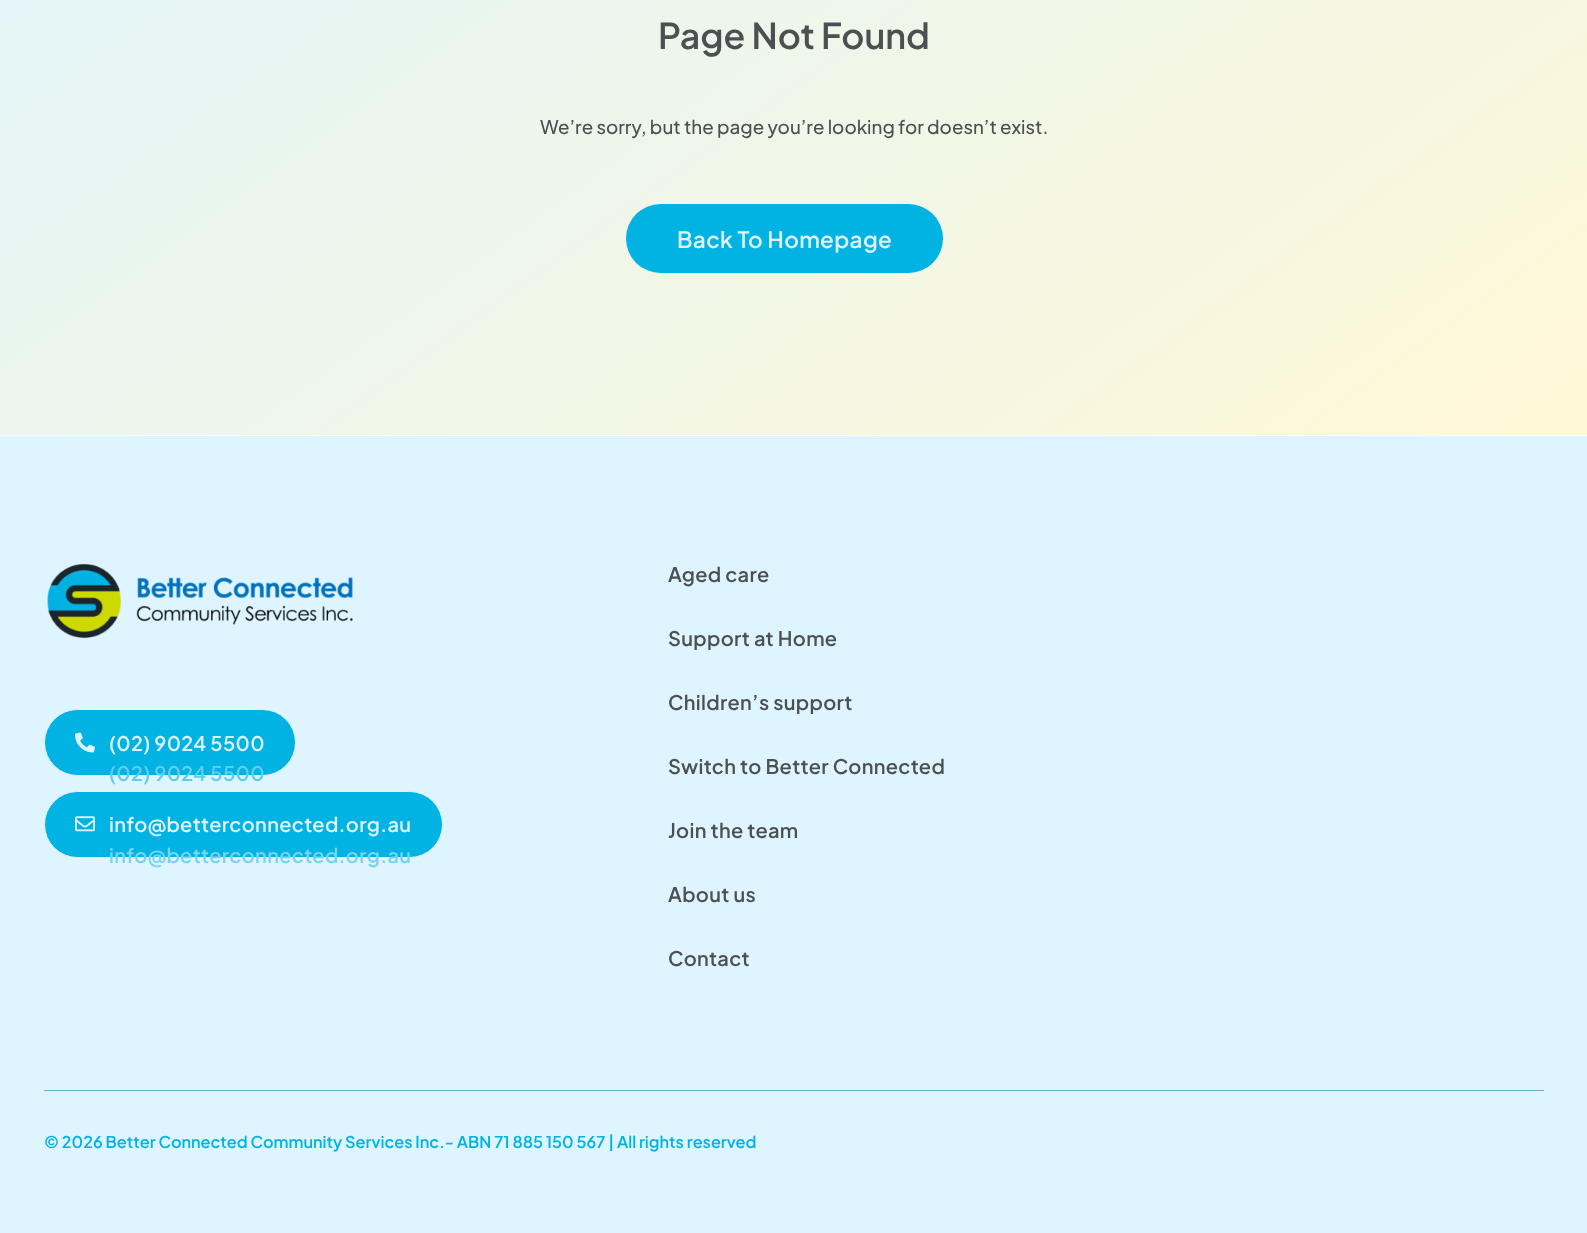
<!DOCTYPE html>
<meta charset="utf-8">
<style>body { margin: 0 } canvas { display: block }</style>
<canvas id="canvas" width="1587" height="1233"></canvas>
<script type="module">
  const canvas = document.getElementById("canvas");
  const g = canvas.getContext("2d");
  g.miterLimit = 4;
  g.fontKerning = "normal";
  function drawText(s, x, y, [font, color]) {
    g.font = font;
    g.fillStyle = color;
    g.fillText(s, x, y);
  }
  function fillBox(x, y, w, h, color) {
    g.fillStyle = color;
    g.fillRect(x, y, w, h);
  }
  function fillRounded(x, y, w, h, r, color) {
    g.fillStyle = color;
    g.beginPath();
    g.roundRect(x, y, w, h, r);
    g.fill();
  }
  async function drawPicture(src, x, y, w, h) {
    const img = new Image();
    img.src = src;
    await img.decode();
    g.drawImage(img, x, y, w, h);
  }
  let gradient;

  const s1 = ["600 35.5px Plus Jakarta Sans", "#4D5052"];
  const s2 = ["500 18.75px Plus Jakarta Sans", "#4D5052"];
  const s3 = ["600 22.5px Plus Jakarta Sans", "#DEF4FF"];
  const s4 = ["600 20px Plus Jakarta Sans", "#DEF4FF"];
  const s5 = ["600 20px Plus Jakarta Sans", "#5CCEEF"];
  const s6 = ["600 20px Plus Jakarta Sans", "#73D5F2"];
  const s7 = ["600 20px Plus Jakarta Sans", "#4D5052"];
  const s8 = ["600 16.25px Plus Jakarta Sans", "#00B3E3"];

  fillBox(0, 0, 1587, 1233, "#DEF4FF");
  gradient = g.createLinearGradient(329, -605, 1258, 674);
  gradient.addColorStop(0, "#DEF4FF");
  gradient.addColorStop(1, "#FFF8D6");
  g.fillStyle = gradient;
  g.fillRect(0, 0, 1587, 435);
  drawText("Page Not Found", 658, 49, s1);
  drawText("We’re sorry, but the page you’re looking for doesn’t exist.", 540, 134, s2);
  fillRounded(626, 204, 317, 69, 34.5, "#00B3E3");
  g.letterSpacing = "0.3px";
  drawText("Back To Homepage", 677, 248, s3);
  fillBox(0, 435, 1587, 1, "#FFFFFF");
  await drawPicture("pic1.png", 47, 563, 306, 76);
  g.fillStyle = "#00B3E3";
  g.beginPath();
  g.roundRect(44.5, 709.5, 251, 66, 33);
  g.fill();
  g.strokeStyle = "#DEF4FF";
  g.stroke();
  await drawPicture("pic2.png", 75, 732, 20, 21);
  drawText("(02) 9024 5500", 109, 751, s4);
  drawText("(02) 9024 5500", 109, 781, s5);
  g.fillStyle = "#00B3E3";
  g.beginPath();
  g.roundRect(44.5, 791.5, 398, 66, 33);
  g.fill();
  g.stroke();
  await drawPicture("pic3.png", 75, 816, 20, 16);
  drawText("info@betterconnected.org.au", 109, 832, s4);
  drawText("info@betterconnected.org.au", 109, 863, s6);
  drawText("Aged care", 668, 582, s7);
  drawText("Support at Home", 668, 646, s7);
  drawText("Children’s support", 668, 710, s7);
  drawText("Switch to Better Connected", 668, 774, s7);
  drawText("Join the team", 668, 838, s7);
  drawText("About us", 668, 902, s7);
  drawText("Contact", 668, 966, s7);
  fillBox(44, 1090, 1500, 1, "#64B0C8");
  g.letterSpacing = "0px";
  drawText("© 2026 Better Connected Community Services Inc.- ABN 71 885 150 567 | All rights reserved", 44, 1148, s8);
</script>
